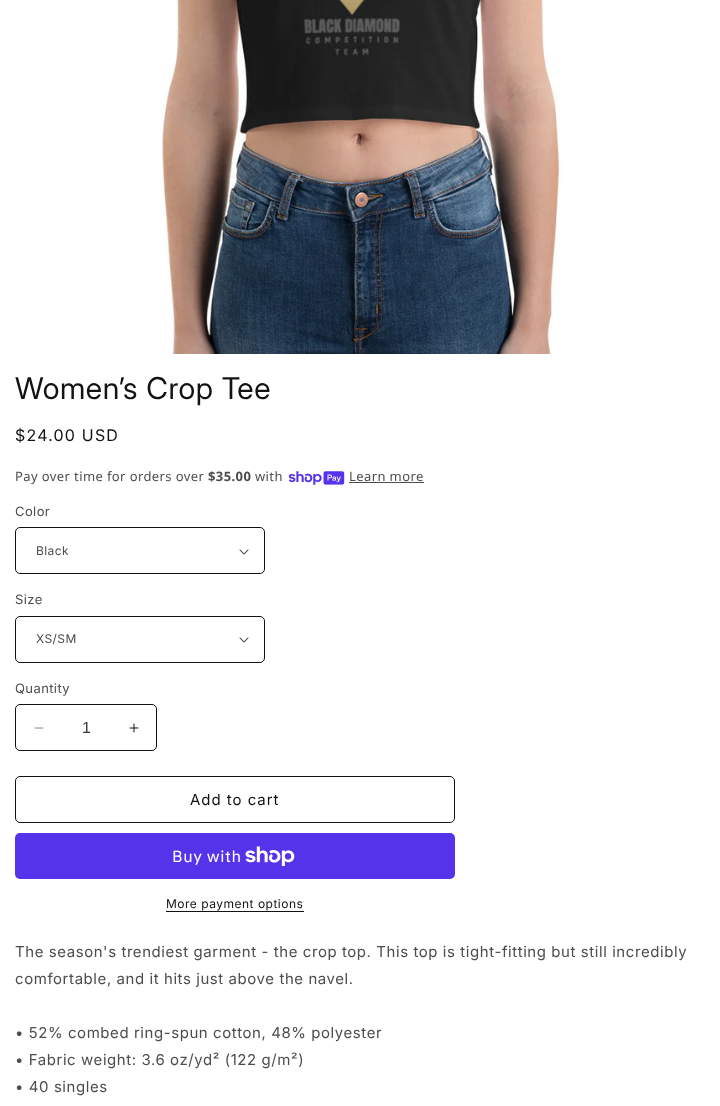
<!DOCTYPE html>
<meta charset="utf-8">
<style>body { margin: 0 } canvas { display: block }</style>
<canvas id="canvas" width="720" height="1106"></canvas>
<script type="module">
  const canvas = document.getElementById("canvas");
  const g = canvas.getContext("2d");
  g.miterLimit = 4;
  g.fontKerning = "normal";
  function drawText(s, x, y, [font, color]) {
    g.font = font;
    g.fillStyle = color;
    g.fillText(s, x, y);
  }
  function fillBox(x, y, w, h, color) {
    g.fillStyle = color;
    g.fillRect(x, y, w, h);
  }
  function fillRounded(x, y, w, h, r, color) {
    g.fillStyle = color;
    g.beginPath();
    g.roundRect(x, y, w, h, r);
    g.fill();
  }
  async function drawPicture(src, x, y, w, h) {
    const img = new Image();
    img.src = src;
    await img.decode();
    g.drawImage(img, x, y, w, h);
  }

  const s1 = ["30px Inter", "#121212"];
  const s2 = ["16px 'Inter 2'", "#121212"];
  const s3 = ["13px Noto Sans", "#4D4D4D"];
  const s4 = ["bold 13px Noto Sans", "#4D4D4D"];
  const s5 = ["13px 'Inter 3'", "#4D4D4D"];
  const s6 = ["12px 'Inter 3'", "#4D4D4D"];
  const s7 = ["16px Liberation Sans", "#363636"];
  const s8 = ["15px 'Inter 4'", "#121212"];
  const s9 = ["16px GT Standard", "#FFFFFF"];
  const s10 = ["12px 'Inter 3'", "#121212"];
  const s11 = ["15px 'Inter 4'", "#4D4D4D"];

  fillBox(0, 0, 720, 1106, "#FFFFFF");
  await drawPicture("pic1.png", 162, 0, 400, 354);
  g.letterSpacing = "0.6px";
  drawText("Women’s Crop Tee", 15, 399, s1);
  g.letterSpacing = "1.25px";
  drawText("$24.00 USD", 15, 441, s2);
  g.letterSpacing = "0.4px";
  drawText("Pay over time for orders over", 15, 481, s3);
  drawText("$35.00", 208, 481, s4);
  drawText("with", 255, 481, s3);
  await drawPicture("pic2.png", 288, 471, 57, 14);
  drawText("Learn more", 349, 481, s3);
  fillBox(349, 482, 75, 1, "#4D4D4D");
  drawText("Color", 15, 516, s5);
  await drawPicture("pic3.png", 239, 549, 10, 6);
  g.beginPath();
  g.roundRect(15.5, 527.5, 249, 46, 4.5);
  g.strokeStyle = "#121212";
  g.stroke();
  drawText("Black", 36, 555, s6);
  drawText("Size", 15, 604, s5);
  await drawPicture("pic3.png", 239, 637, 10, 6);
  g.beginPath();
  g.roundRect(15.5, 616.5, 249, 46, 4.5);
  g.stroke();
  drawText("XS/SM", 36, 643, s6);
  drawText("Quantity", 15, 693, s5);
  await drawPicture("pic4.png", 34, 727, 10, 2);
  await drawPicture("pic5.png", 129, 723, 10, 10);
  g.beginPath();
  g.roundRect(15.5, 704.5, 141, 46, 4.5);
  g.stroke();
  g.letterSpacing = "0px";
  drawText("1", 82, 733, s7);
  g.beginPath();
  g.roundRect(15.5, 776.5, 439, 46, 4.5);
  g.stroke();
  g.letterSpacing = "1px";
  drawText("Add to cart", 190, 805, s8);
  fillRounded(15, 833, 440, 46, 5, "#5433EB");
  g.letterSpacing = "0.6px";
  drawText("Buy with", 172, 862, s9);
  await drawPicture("pic6.png", 245, 846, 50, 20);
  g.letterSpacing = "0.5px";
  drawText("More payment options", 166, 908, s10);
  fillBox(166, 911, 138, 1, "#121212");
  g.letterSpacing = "0.6px";
  drawText("The season's trendiest garment - the crop top. This top is tight-fitting but still incredibly", 15, 957, s11);
  drawText("comfortable, and it hits just above the navel.", 15, 984, s11);
  drawText("• 52% combed ring-spun cotton, 48% polyester", 15, 1038, s11);
  drawText("• Fabric weight: 3.6 oz/yd² (122 g/m²)", 15, 1065, s11);
  drawText("• 40 singles", 15, 1092, s11);
</script>
